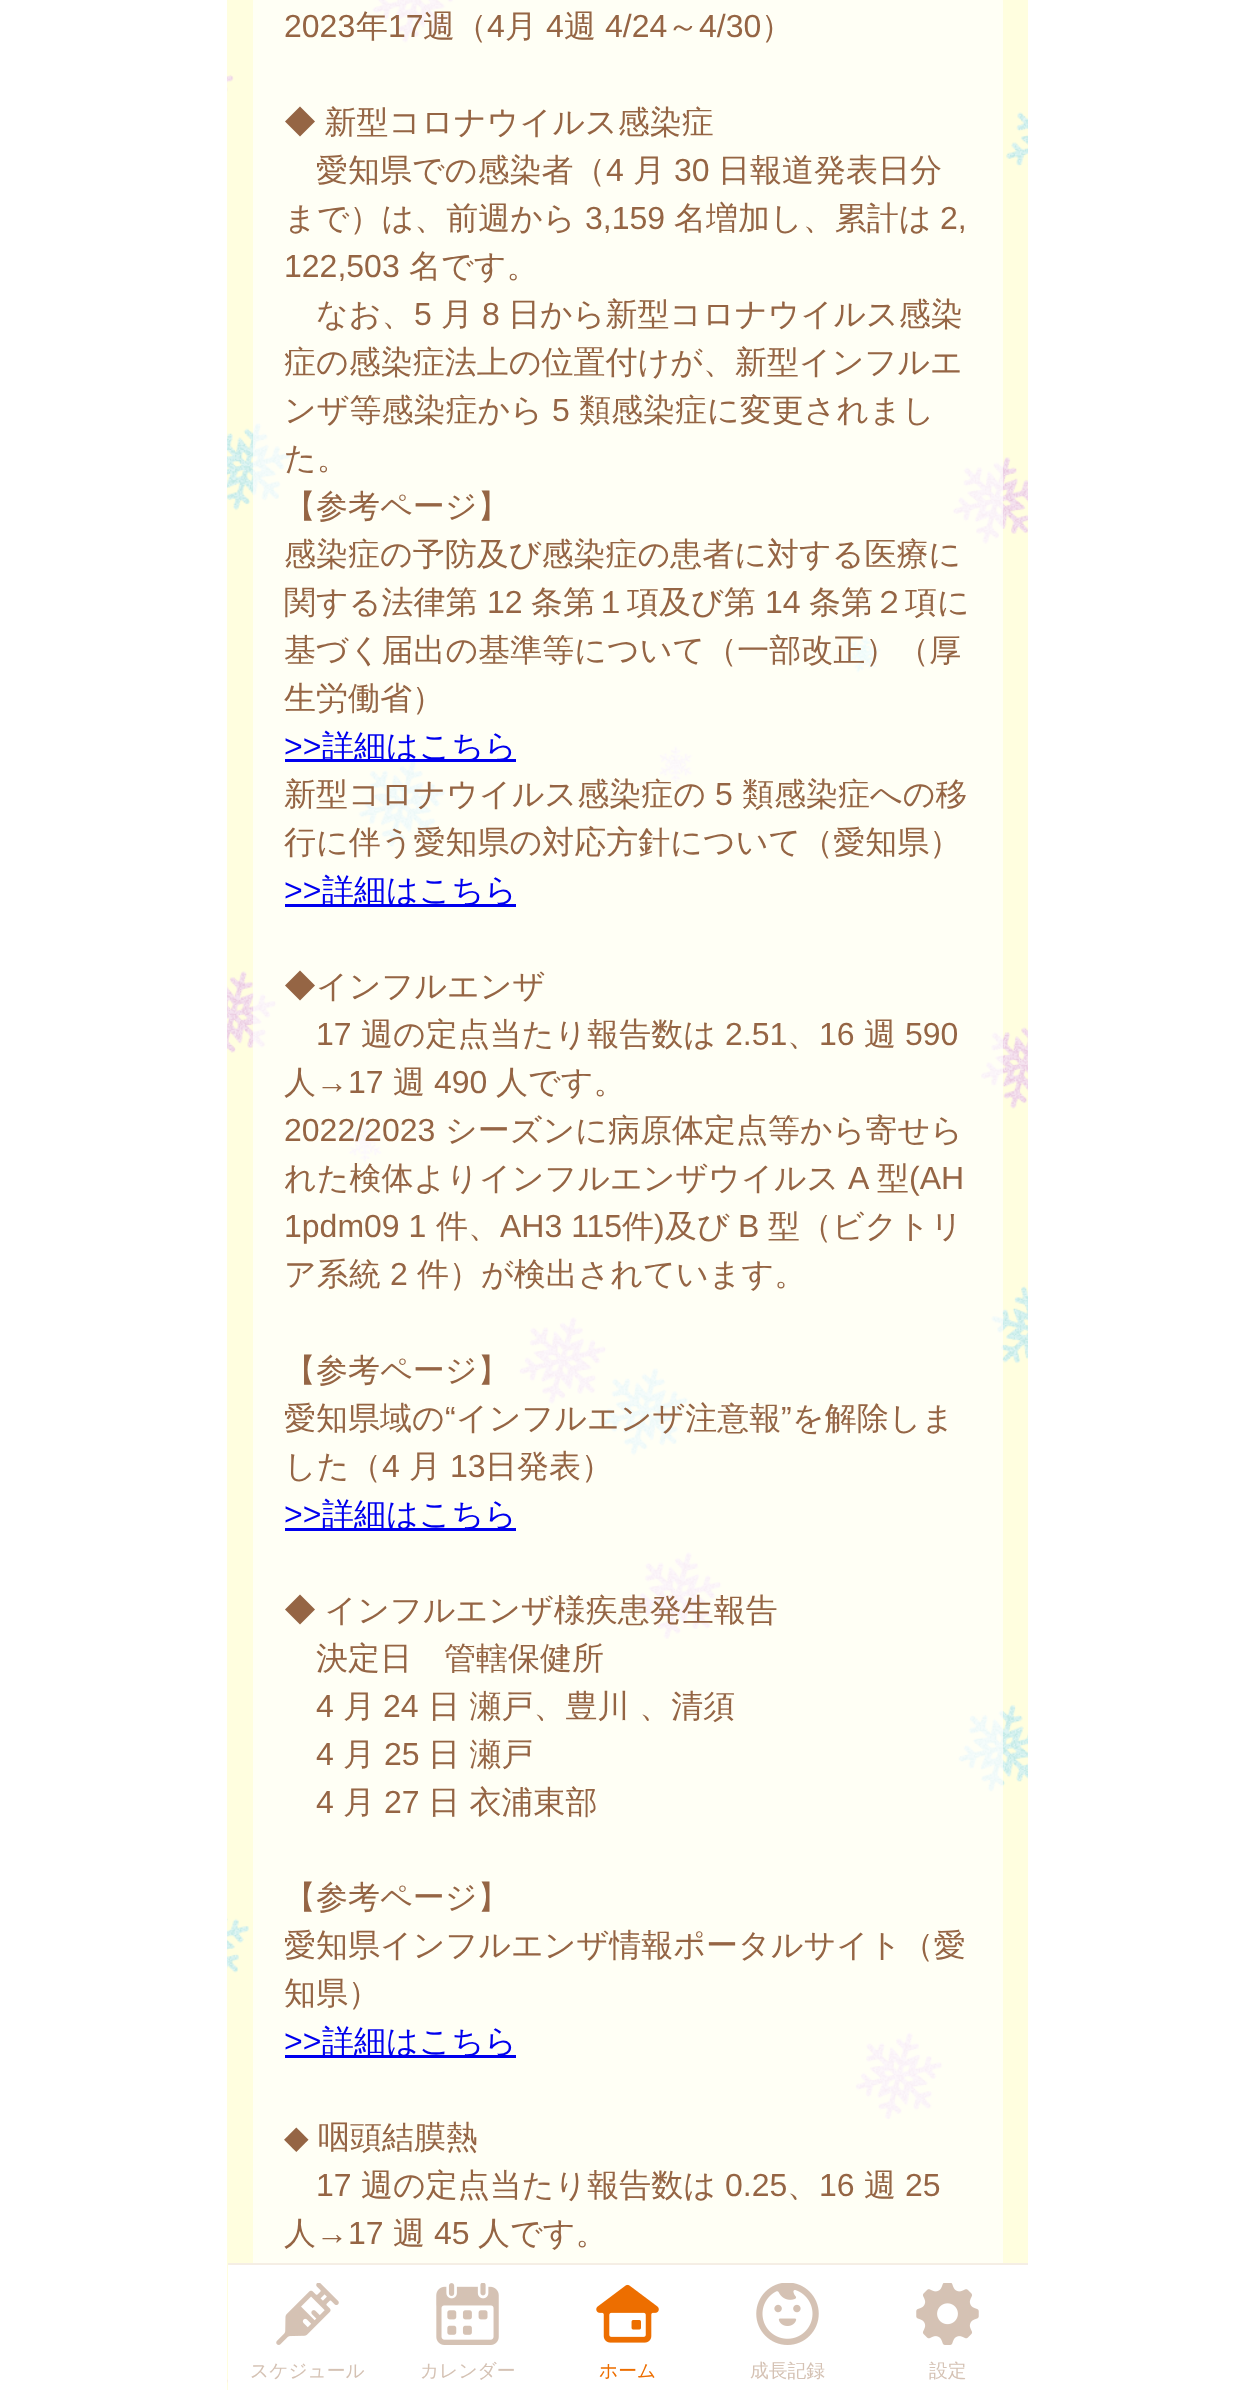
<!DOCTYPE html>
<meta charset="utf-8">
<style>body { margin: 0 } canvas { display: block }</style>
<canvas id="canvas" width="1254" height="2390"></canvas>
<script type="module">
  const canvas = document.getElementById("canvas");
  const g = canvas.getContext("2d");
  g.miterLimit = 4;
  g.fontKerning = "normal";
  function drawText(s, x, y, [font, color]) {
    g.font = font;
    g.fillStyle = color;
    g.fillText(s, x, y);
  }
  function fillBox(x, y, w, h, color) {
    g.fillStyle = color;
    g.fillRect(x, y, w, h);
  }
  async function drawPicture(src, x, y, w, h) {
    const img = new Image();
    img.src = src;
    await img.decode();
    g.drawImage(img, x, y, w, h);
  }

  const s1 = ["32px Liberation Sans", "#956544"];
  const s2 = ["500 32px WenQuanYi Zen Hei", "#956544"];
  const s3 = ["32px Liberation Sans", "#0000EE"];
  const s4 = ["500 32px WenQuanYi Zen Hei", "#0000EE"];
  const s5 = ["32px DejaVu Sans", "#956544"];
  const s6 = ["500 18.75px WenQuanYi Zen Hei", "#D5C2B4"];
  const s7 = ["500 18.75px WenQuanYi Zen Hei", "#ED6E00"];

  fillBox(0, 0, 1254, 2390, "#FFFFFF");
  await drawPicture("pic1.png", 227, 0, 801, 2390);
  drawText("2023", 284, 37, s1);
  drawText("年", 356, 37, s2);
  drawText("17", 388, 37, s1);
  drawText("週（", 423, 37, s2);
  drawText("4", 487, 37, s1);
  drawText("月", 505, 37, s2);
  drawText("4", 546, 37, s1);
  drawText("週", 564, 37, s2);
  drawText("4/24", 605, 37, s1);
  drawText("～", 667, 37, s2);
  drawText("4/30", 699, 37, s1);
  drawText("）", 761, 37, s2);
  g.wordSpacing = "-1px";
  drawText("◆ 新型コロナウイルス感染症", 284, 133, s2);
  g.wordSpacing = "0px";
  drawText("愛知県での感染者（", 316, 181, s2);
  drawText("4", 606, 181, s1);
  drawText("月", 633, 181, s2);
  drawText("30", 674, 181, s1);
  drawText("日報道発表日分", 718, 181, s2);
  drawText("まで）は、前週から", 284, 229, s2);
  drawText("3,159", 585, 229, s1);
  drawText("名増加し、累計は", 674, 229, s2);
  drawText("2,", 940, 229, s1);
  drawText("122,503", 284, 277, s1);
  drawText("名です。", 409, 277, s2);
  drawText("なお、", 316, 325, s2);
  drawText("5", 414, 325, s1);
  drawText("月", 441, 325, s2);
  drawText("8", 482, 325, s1);
  drawText("日から新型コロナウイルス感染", 508, 325, s2);
  drawText("症の感染症法上の位置付けが、新型インフルエ", 284, 373, s2);
  drawText("ンザ等感染症から", 284, 421, s2);
  drawText("5", 552, 421, s1);
  drawText("類感染症に変更されまし", 579, 421, s2);
  drawText("た。", 284, 469, s2);
  drawText("【参考ページ】", 284, 517, s2);
  drawText("感染症の予防及び感染症の患者に対する医療に", 284, 565, s2);
  drawText("関する法律第", 284, 613, s2);
  drawText("12", 487, 613, s1);
  drawText("条第１項及び第", 531, 613, s2);
  drawText("14", 765, 613, s1);
  drawText("条第２項に", 809, 613, s2);
  drawText("基づく届出の基準等について（一部改正）（厚", 284, 661, s2);
  drawText("生労働省）", 284, 709, s2);
  drawText(">>", 284, 757, s3);
  fillBox(285, 759, 231, 3, "#0000EE");
  drawText("詳細はこちら", 322, 757, s4);
  drawText("新型コロナウイルス感染症の", 284, 805, s2);
  drawText("5", 715, 805, s1);
  drawText("類感染症への移", 742, 805, s2);
  drawText("行に伴う愛知県の対応方針について（愛知県）", 284, 853, s2);
  drawText(">>", 284, 901, s3);
  fillBox(285, 904, 231, 3, "#0000EE");
  drawText("詳細はこちら", 322, 901, s4);
  drawText("◆インフルエンザ", 284, 997, s2);
  drawText("17", 316, 1045, s1);
  drawText("週の定点当たり報告数は", 361, 1045, s2);
  drawText("2.51", 725, 1045, s1);
  drawText("、", 787, 1045, s2);
  drawText("16", 819, 1045, s1);
  drawText("週", 864, 1045, s2);
  drawText("590", 905, 1045, s1);
  drawText("人", 284, 1093, s2);
  drawText("→17", 316, 1093, s1);
  drawText("週", 393, 1093, s2);
  drawText("490", 434, 1093, s1);
  drawText("人です。", 496, 1093, s2);
  drawText("2022/2023", 284, 1141, s1);
  drawText("シーズンに病原体定点等から寄せら", 445, 1141, s2);
  drawText("れた検体よりインフルエンザウイルス", 284, 1189, s2);
  drawText("A", 848, 1189, s1);
  drawText("型", 877, 1189, s2);
  drawText("(AH", 909, 1189, s1);
  drawText("1pdm09 1", 284, 1237, s1);
  drawText("件、", 436, 1237, s2);
  drawText("AH3 115", 500, 1237, s1);
  drawText("件", 622, 1237, s2);
  drawText(")", 654, 1237, s1);
  drawText("及び", 665, 1237, s2);
  drawText("B", 738, 1237, s1);
  drawText("型（ビクトリ", 768, 1237, s2);
  drawText("ア系統", 284, 1285, s2);
  drawText("2", 390, 1285, s1);
  drawText("件）が検出されています。", 417, 1285, s2);
  drawText("【参考ページ】", 284, 1381, s2);
  drawText("愛知県域の", 284, 1429, s2);
  drawText("“", 445, 1429, s1);
  drawText("インフルエンザ注意報", 456, 1429, s2);
  drawText("”", 781, 1429, s1);
  drawText("を解除しま", 792, 1429, s2);
  drawText("した（", 284, 1477, s2);
  drawText("4", 382, 1477, s1);
  drawText("月", 409, 1477, s2);
  drawText("13", 450, 1477, s1);
  drawText("日発表）", 485, 1477, s2);
  drawText(">>", 284, 1525, s3);
  fillBox(285, 1528, 231, 3, "#0000EE");
  drawText("詳細はこちら", 322, 1525, s4);
  g.wordSpacing = "-1px";
  drawText("◆ インフルエンザ様疾患発生報告", 284, 1621, s2);
  g.wordSpacing = "0px";
  drawText("決定日　管轄保健所", 316, 1669, s2);
  drawText("4", 316, 1717, s1);
  drawText("月", 343, 1717, s2);
  drawText("24", 383, 1717, s1);
  drawText("日 瀬戸、豊川 、清須", 428, 1717, s2);
  drawText("4", 316, 1765, s1);
  drawText("月", 343, 1765, s2);
  drawText("25", 384, 1765, s1);
  drawText("日 瀬戸", 428, 1765, s2);
  drawText("4", 316, 1813, s1);
  drawText("月", 343, 1813, s2);
  drawText("27", 384, 1813, s1);
  drawText("日 衣浦東部", 428, 1813, s2);
  drawText("【参考ページ】", 284, 1908, s2);
  drawText("愛知県インフルエンザ情報ポータルサイト（愛", 284, 1956, s2);
  drawText("知県）", 284, 2004, s2);
  drawText(">>", 284, 2052, s3);
  fillBox(285, 2055, 231, 3, "#0000EE");
  drawText("詳細はこちら", 322, 2052, s4);
  drawText("◆", 284, 2148, s5);
  drawText("咽頭結膜熱", 318, 2148, s2);
  drawText("17", 316, 2196, s1);
  drawText("週の定点当たり報告数は", 361, 2196, s2);
  drawText("0.25", 725, 2196, s1);
  drawText("、", 787, 2196, s2);
  drawText("16", 819, 2196, s1);
  drawText("週", 864, 2196, s2);
  drawText("25", 905, 2196, s1);
  drawText("人", 284, 2244, s2);
  drawText("→17", 316, 2244, s1);
  drawText("週", 393, 2244, s2);
  drawText("45", 434, 2244, s1);
  drawText("人です。", 478, 2244, s2);
  fillBox(228, 2263, 800, 2, "#F5EEE5");
  fillBox(228, 2265, 800, 125, "#FFFFFF");
  await drawPicture("pic2.png", 276, 2283, 63, 62);
  drawText("スケジュール", 250, 2377, s6);
  await drawPicture("pic3.png", 436, 2283, 63, 62);
  drawText("カレンダー", 420, 2377, s6);
  await drawPicture("pic4.png", 596, 2284, 63, 59);
  drawText("ホーム", 599, 2377, s7);
  await drawPicture("pic5.png", 756, 2283, 63, 62);
  drawText("成長記録", 750, 2377, s6);
  await drawPicture("pic6.png", 916, 2283, 63, 62);
  drawText("設定", 929, 2377, s6);
</script>
